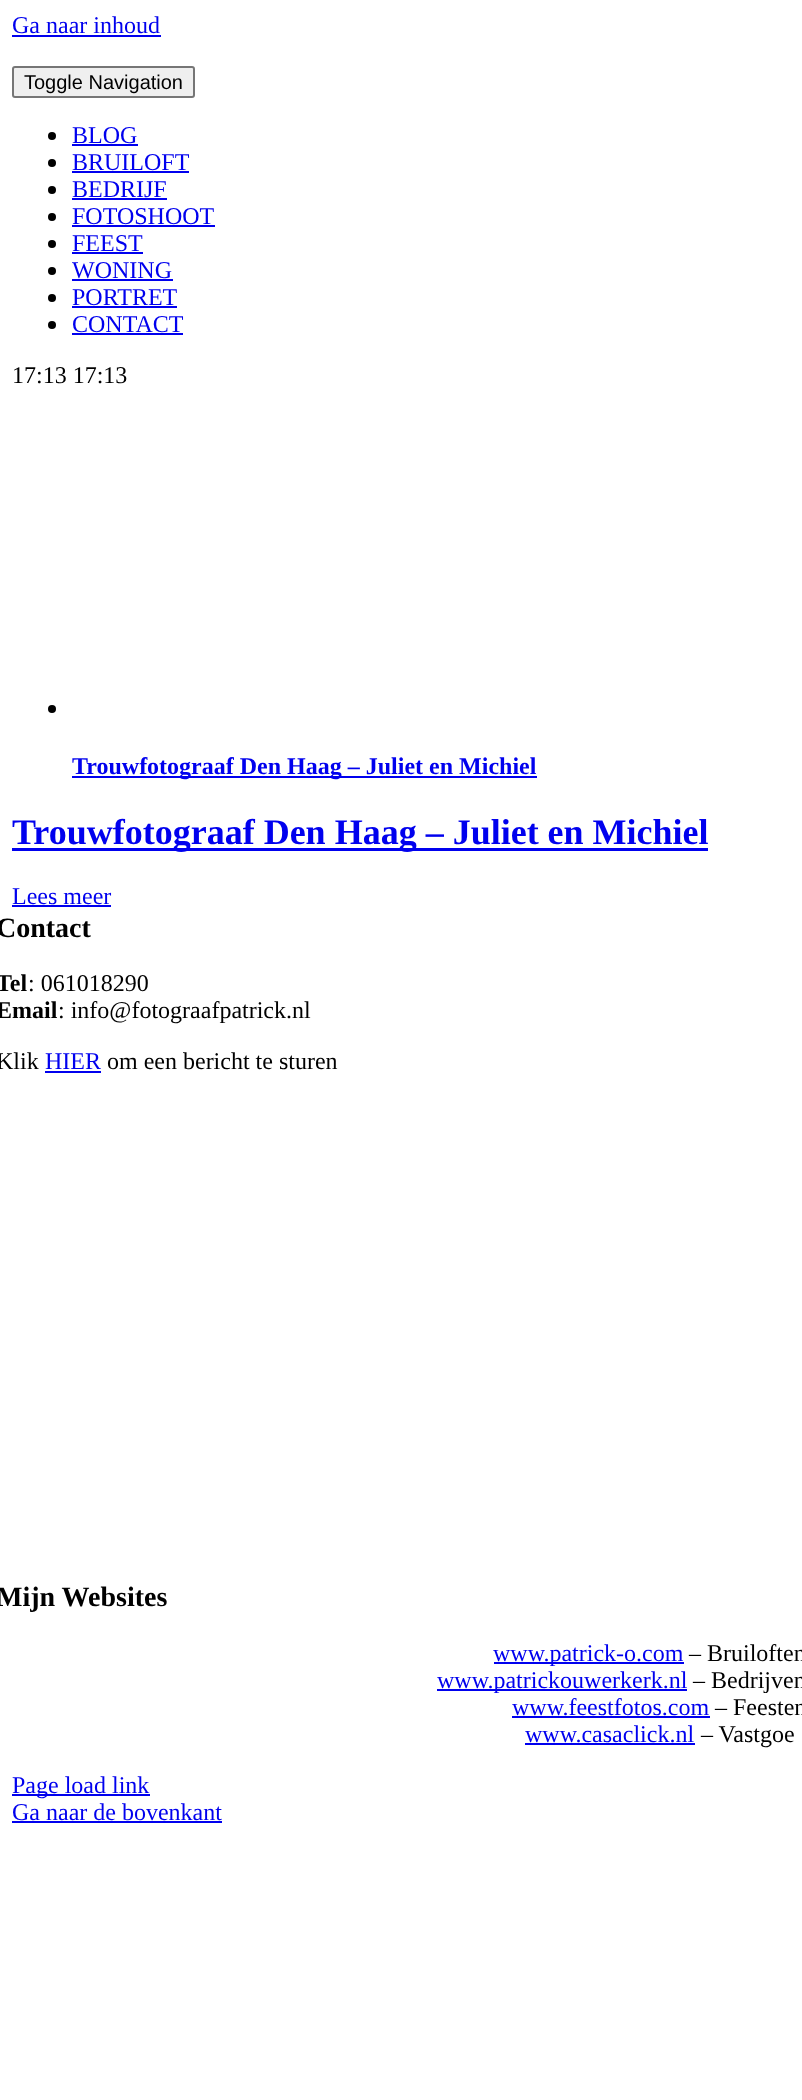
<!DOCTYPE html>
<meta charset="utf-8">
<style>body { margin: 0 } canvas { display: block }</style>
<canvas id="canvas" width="802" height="2100"></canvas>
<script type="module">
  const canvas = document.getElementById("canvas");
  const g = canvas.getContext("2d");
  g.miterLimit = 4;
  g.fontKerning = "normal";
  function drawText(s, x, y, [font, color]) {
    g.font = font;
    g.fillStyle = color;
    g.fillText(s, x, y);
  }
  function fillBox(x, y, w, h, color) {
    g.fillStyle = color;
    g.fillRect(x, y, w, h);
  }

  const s1 = ["24px Liberation Serif", "#0000EE"];
  const s2 = ["20px Liberation Sans", "#000000"];
  const s3 = ["24px Liberation Serif", "#000000"];
  const s4 = ["bold 24px Liberation Serif", "#0000EE"];
  const s5 = ["bold 36px Liberation Serif", "#0000EE"];
  const s6 = ["bold 28px Liberation Serif", "#000000"];
  const s7 = ["bold 24px Liberation Serif", "#000000"];

  fillBox(0, 0, 802, 2100, "#FFFFFF");
  drawText("Ga naar inhoud", 12, 33, s1);
  fillBox(12, 35, 149, 2, "#0000EE");
  g.fillStyle = "#EFEFEF";
  g.beginPath();
  g.roundRect(13, 67, 181, 30, 2);
  g.fill();
  g.strokeStyle = "#767676";
  g.lineWidth = 2;
  g.stroke();
  drawText("Toggle Navigation", 24, 89, s2);
  g.beginPath();
  g.arc(52, 136, 4, 0, Math.PI * 2);
  g.fill();
  drawText("BLOG", 72, 143, s1);
  fillBox(72, 144, 66, 2, "#0000EE");
  g.fillStyle = "#000000";
  g.beginPath();
  g.arc(52, 163, 4, 0, Math.PI * 2);
  g.fill();
  drawText("BRUILOFT", 72, 170, s1);
  fillBox(72, 171, 117, 2, "#0000EE");
  g.fillStyle = "#000000";
  g.beginPath();
  g.arc(52, 190, 4, 0, Math.PI * 2);
  g.fill();
  drawText("BEDRIJF", 72, 197, s1);
  fillBox(72, 198, 95, 2, "#0000EE");
  g.fillStyle = "#000000";
  g.beginPath();
  g.arc(52, 217, 4, 0, Math.PI * 2);
  g.fill();
  drawText("FOTOSHOOT", 72, 224, s1);
  fillBox(72, 225, 143, 2, "#0000EE");
  g.fillStyle = "#000000";
  g.beginPath();
  g.arc(52, 244, 4, 0, Math.PI * 2);
  g.fill();
  drawText("FEEST", 72, 251, s1);
  fillBox(72, 252, 71, 2, "#0000EE");
  g.fillStyle = "#000000";
  g.beginPath();
  g.arc(52, 271, 4, 0, Math.PI * 2);
  g.fill();
  drawText("WONING", 72, 278, s1);
  fillBox(72, 279, 101, 2, "#0000EE");
  g.fillStyle = "#000000";
  g.beginPath();
  g.arc(52, 298, 4, 0, Math.PI * 2);
  g.fill();
  drawText("PORTRET", 72, 305, s1);
  fillBox(72, 306, 105, 2, "#0000EE");
  g.fillStyle = "#000000";
  g.beginPath();
  g.arc(52, 325, 4, 0, Math.PI * 2);
  g.fill();
  drawText("CONTACT", 72, 332, s1);
  fillBox(72, 333, 111, 2, "#0000EE");
  drawText("17:13 17:13", 12, 383, s3);
  g.beginPath();
  g.arc(52, 709, 4, 0, Math.PI * 2);
  g.fill();
  fillBox(72, 776, 465, 2, "#0000EE");
  drawText("Trouwfotograaf Den Haag – Juliet en Michiel", 72, 774, s4);
  fillBox(12, 848, 696, 3, "#0000EE");
  drawText("Trouwfotograaf Den Haag – Juliet en Michiel", 12, 844, s5);
  drawText("Lees meer", 12, 904, s1);
  fillBox(12, 905, 99, 2, "#0000EE");
  drawText("Contact", -4, 937, s6);
  drawText("Tel", -4, 991, s7);
  drawText(": 061018290", 28, 991, s3);
  drawText("Email", -4, 1018, s7);
  drawText(": info@fotograafpatrick.nl", 58, 1018, s3);
  drawText("Klik", -4, 1069, s3);
  drawText("HIER", 45, 1069, s1);
  fillBox(45, 1071, 56, 2, "#0000EE");
  drawText("om een bericht te sturen", 107, 1069, s3);
  drawText("Mijn Websites", -4, 1606, s6);
  fillBox(494, 1662, 190, 2, "#0000EE");
  drawText("www.patrick-o.com", 493, 1661, s1);
  drawText("– Bruiloften", 689, 1661, s3);
  fillBox(437, 1689, 250, 2, "#0000EE");
  drawText("www.patrickouwerkerk.nl", 437, 1688, s1);
  drawText("– Bedrijven", 693, 1688, s3);
  drawText("www.feestfotos.com", 512, 1715, s1);
  fillBox(512, 1716, 198, 2, "#0000EE");
  drawText("– Feesten", 715, 1715, s3);
  drawText("www.casaclick.nl", 525, 1742, s1);
  fillBox(525, 1743, 170, 2, "#0000EE");
  drawText("– Vastgoe", 701, 1742, s3);
  fillBox(12, 1794, 138, 2, "#0000EE");
  drawText("Page load link", 12, 1793, s1);
  drawText("Ga naar de bovenkant", 12, 1820, s1);
  fillBox(12, 1821, 210, 2, "#0000EE");
</script>
